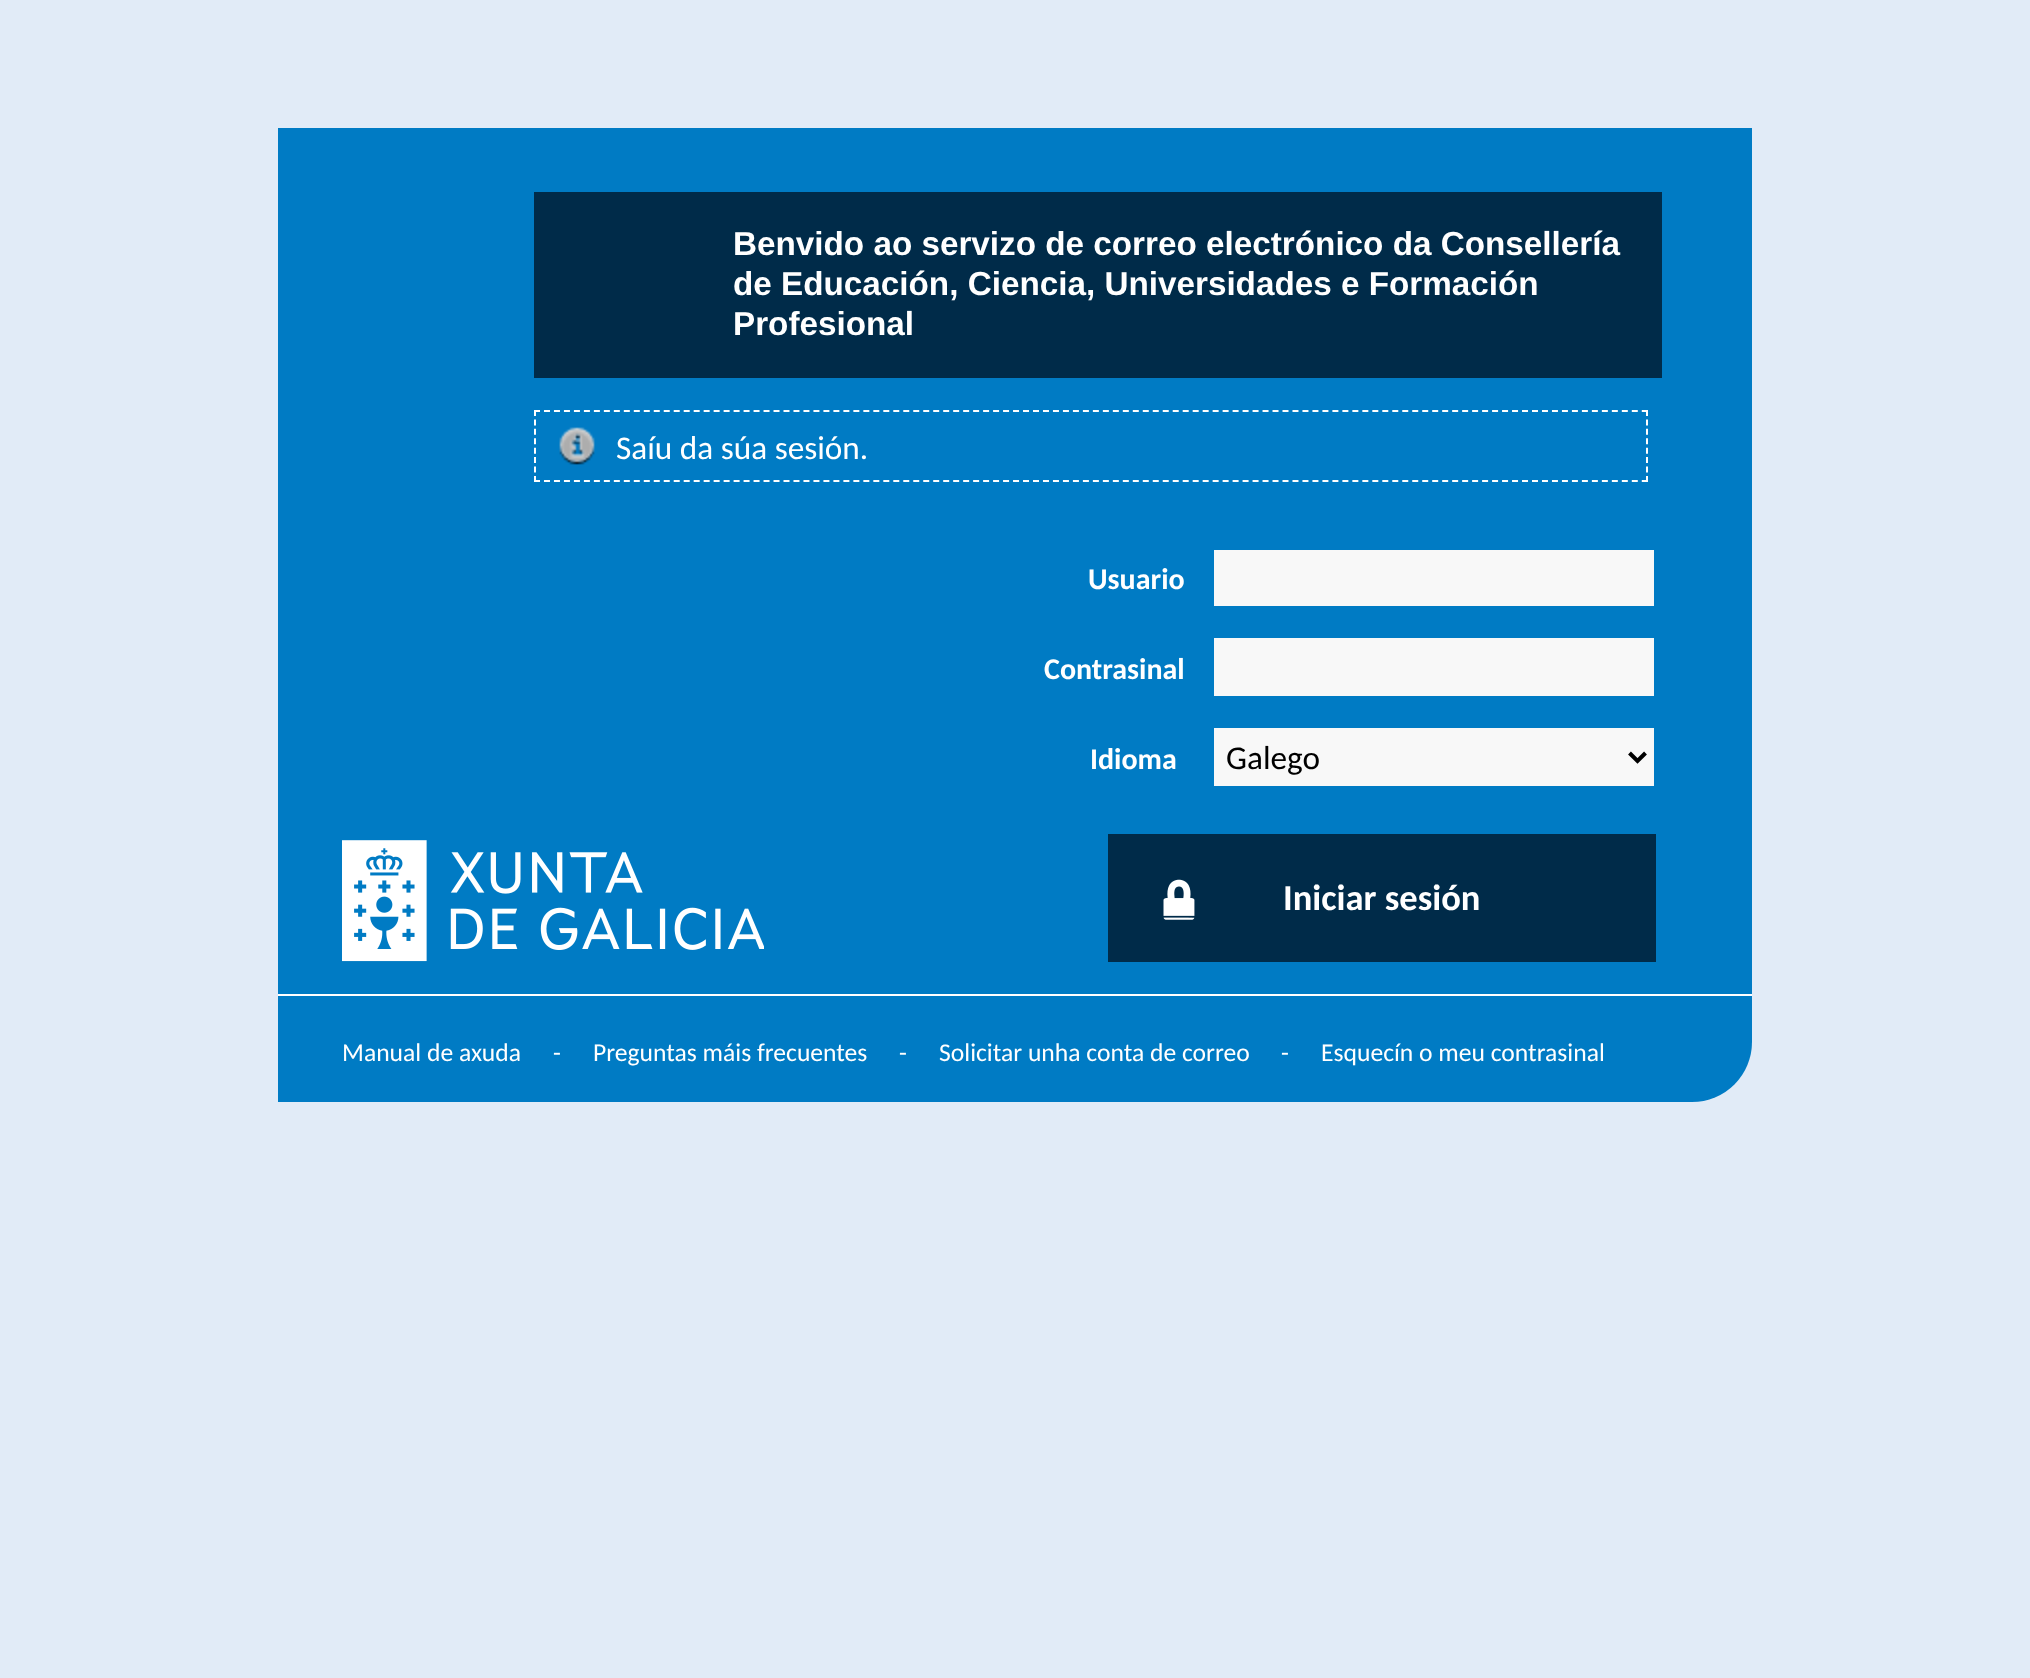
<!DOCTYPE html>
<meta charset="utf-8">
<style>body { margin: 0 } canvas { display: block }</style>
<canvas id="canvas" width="2030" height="1678"></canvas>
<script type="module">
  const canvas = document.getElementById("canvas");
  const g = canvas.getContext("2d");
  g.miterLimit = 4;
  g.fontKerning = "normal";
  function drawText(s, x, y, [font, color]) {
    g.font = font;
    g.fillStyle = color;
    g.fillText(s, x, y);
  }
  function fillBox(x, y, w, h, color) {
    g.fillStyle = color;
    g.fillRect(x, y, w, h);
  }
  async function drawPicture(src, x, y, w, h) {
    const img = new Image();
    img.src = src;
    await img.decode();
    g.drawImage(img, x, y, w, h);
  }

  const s1 = ["bold 33.25px Liberation Sans", "#FFFFFF"];
  const s2 = ["33.25px Carlito", "#FFFFFF"];
  const s3 = ["bold 30px Carlito", "#FFFFFF"];
  const s4 = ["33.25px Carlito", "#000000"];
  const s5 = ["bold 36.5px Carlito", "#FFFFFF"];
  const s6 = ["25.6px Carlito", "#FFFFFF"];

  fillBox(0, 0, 2030, 1678, "#E1EBF7");
  g.fillStyle = "#007BC4";
  g.beginPath();
  g.roundRect(278, 128, 1474, 974, [0, 0, 60, 0]);
  g.fill();
  fillBox(534, 192, 1128, 186, "#002B49");
  drawText("Benvido ao servizo de correo electrónico da Consellería", 733, 255, s1);
  drawText("de Educación, Ciencia, Universidades e Formación", 733, 295, s1);
  drawText("Profesional", 733, 335, s1);
  g.beginPath();
  g.moveTo(534, 411);
  g.lineTo(1648, 411);
  g.strokeStyle = "#FFFFFF";
  g.lineWidth = 2;
  g.setLineDash([6, 3.98]);
  g.stroke();
  g.beginPath();
  g.moveTo(1647, 410);
  g.lineTo(1647, 482);
  g.setLineDash([6, 3.42]);
  g.stroke();
  g.beginPath();
  g.moveTo(534, 481);
  g.lineTo(1648, 481);
  g.setLineDash([6, 3.98]);
  g.stroke();
  g.beginPath();
  g.moveTo(535, 410);
  g.lineTo(535, 482);
  g.setLineDash([6, 3.42]);
  g.stroke();
  await drawPicture("pic1.png", 559, 427, 36, 38);
  drawText("Saíu da súa sesión.", 616, 459, s2);
  await drawPicture("pic2.png", 342, 840, 422, 122);
  drawText("Usuario", 1088, 589, s3);
  fillBox(1214, 550, 440, 56, "#F8F8F8");
  drawText("Contrasinal", 1044, 679, s3);
  fillBox(1214, 638, 440, 58, "#F8F8F8");
  drawText("Idioma", 1090, 769, s3);
  fillBox(1214, 728, 440, 58, "#F8F8F8");
  g.beginPath();
  g.moveTo(1629.5, 753);
  g.lineTo(1637.5, 761);
  g.lineTo(1645.5, 753);
  g.strokeStyle = "#000000";
  g.lineWidth = 4;
  g.setLineDash([]);
  g.stroke();
  drawText("Galego", 1226, 769, s4);
  fillBox(1108, 834, 548, 128, "#002B49");
  await drawPicture("pic3.png", 1163, 879, 32, 41);
  drawText("Iniciar sesión", 1283, 910, s5);
  fillBox(278, 994, 1474, 2, "#FFFFFF");
  drawText("Manual de axuda", 342, 1061, s6);
  drawText("-", 553, 1061, s6);
  drawText("Preguntas máis frecuentes", 593, 1061, s6);
  drawText("-", 899, 1061, s6);
  drawText("Solicitar unha conta de correo", 939, 1061, s6);
  drawText("-", 1281, 1061, s6);
  drawText("Esquecín o meu contrasinal", 1321, 1061, s6);
</script>
